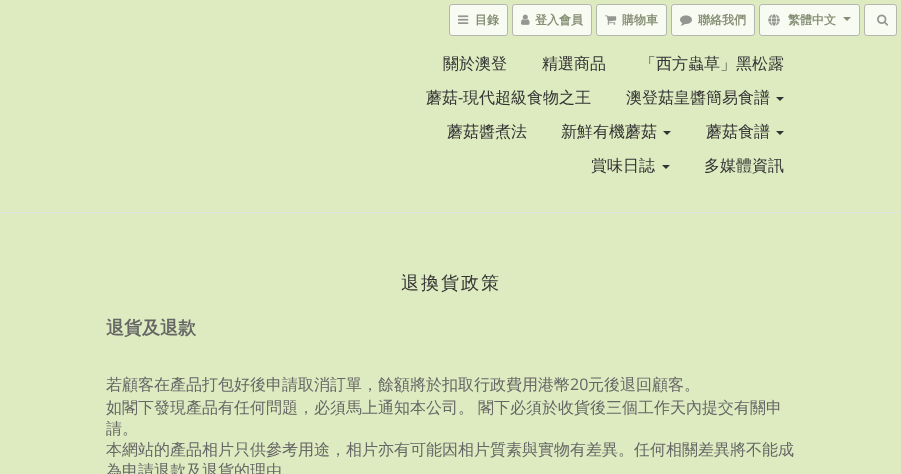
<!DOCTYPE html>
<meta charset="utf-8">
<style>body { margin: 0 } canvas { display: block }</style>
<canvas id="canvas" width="901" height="474"></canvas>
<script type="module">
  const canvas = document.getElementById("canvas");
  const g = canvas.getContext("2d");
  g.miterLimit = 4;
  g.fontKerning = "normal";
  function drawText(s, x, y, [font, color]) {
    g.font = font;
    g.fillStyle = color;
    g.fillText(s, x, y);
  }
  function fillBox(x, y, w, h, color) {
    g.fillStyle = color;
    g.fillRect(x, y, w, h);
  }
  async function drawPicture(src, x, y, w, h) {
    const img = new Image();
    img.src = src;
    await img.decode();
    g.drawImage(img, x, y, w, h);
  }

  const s1 = ["bold 12px WenQuanYi Zen Hei", "#858D73"];
  const s2 = ["500 16px WenQuanYi Zen Hei", "#333333"];
  const s3 = ["16px Open Sans", "#333333"];
  const s4 = ["500 18px WenQuanYi Zen Hei", "#333333"];
  const s5 = ["bold 18px WenQuanYi Zen Hei", "#666666"];
  const s6 = ["500 16px WenQuanYi Zen Hei", "#666666"];
  const s7 = ["16px Open Sans", "#666666"];

  fillBox(0, 0, 901, 474, "#DEEBC0");
  g.fillStyle = "#F8FBF2";
  g.beginPath();
  g.roundRect(449.5, 4.5, 58, 31, 2.5);
  g.fill();
  g.strokeStyle = "#B4B7AE";
  g.stroke();
  await drawPicture("pic1.png", 458, 15, 11, 9);
  drawText("目錄", 475, 24, s1);
  g.fillStyle = "#F8FBF2";
  g.beginPath();
  g.roundRect(512.5, 4.5, 79, 31, 2.5);
  g.fill();
  g.stroke();
  await drawPicture("pic2.png", 521, 14, 9, 11);
  drawText("登入會員", 535, 24, s1);
  g.fillStyle = "#F8FBF2";
  g.beginPath();
  g.roundRect(596.5, 4.5, 70, 31, 2.5);
  g.fill();
  g.stroke();
  await drawPicture("pic3.png", 605, 15, 12, 10);
  drawText("購物車", 622, 24, s1);
  g.fillStyle = "#F8FBF2";
  g.beginPath();
  g.roundRect(671.5, 4.5, 83, 31, 2.5);
  g.fill();
  g.stroke();
  await drawPicture("pic4.png", 680, 15, 12, 11);
  drawText("聯絡我們", 698, 24, s1);
  g.fillStyle = "#F8FBF2";
  g.beginPath();
  g.roundRect(759.5, 4.5, 100, 31, 2.5);
  g.fill();
  g.stroke();
  await drawPicture("pic5.png", 768, 14, 12, 12);
  drawText("繁體中文", 788, 24, s1);
  g.beginPath();
  g.moveTo(843, 17);
  g.lineTo(851, 17);
  g.lineTo(847, 21);
  g.closePath();
  g.fill();
  g.fillStyle = "#F8FBF2";
  g.beginPath();
  g.roundRect(864.5, 4.5, 32, 31, 2.5);
  g.fill();
  g.stroke();
  await drawPicture("pic6.png", 877, 14, 11, 12);
  fillBox(0, 212, 901, 1, "#E0E0E0");
  drawText("關於澳登", 443, 69, s2);
  drawText("精選商品", 542, 69, s2);
  drawText("「西方蟲草」黑松露", 640, 69, s2);
  drawText("蘑菇", 426, 103, s2);
  drawText("-", 458, 103, s3);
  drawText("現代超級食物之王", 463, 103, s2);
  drawText("澳登菇皇醬簡易食譜", 626, 103, s2);
  g.beginPath();
  g.moveTo(776, 97);
  g.lineTo(784, 97);
  g.lineTo(780, 101);
  g.closePath();
  g.fill();
  drawText("蘑菇醬煮法", 447, 137, s2);
  drawText("新鮮有機蘑菇", 561, 137, s2);
  g.beginPath();
  g.moveTo(663, 131);
  g.lineTo(671, 131);
  g.lineTo(667, 135);
  g.closePath();
  g.fill();
  drawText("蘑菇食譜", 706, 137, s2);
  g.beginPath();
  g.moveTo(776, 131);
  g.lineTo(784, 131);
  g.lineTo(780, 135);
  g.closePath();
  g.fill();
  drawText("賞味日誌", 591, 171, s2);
  g.beginPath();
  g.moveTo(662, 165);
  g.lineTo(670, 165);
  g.lineTo(666, 169);
  g.closePath();
  g.fill();
  drawText("多媒體資訊", 704, 171, s2);
  g.letterSpacing = "2px";
  drawText("退換貨政策", 401, 289, s4);
  g.letterSpacing = "0px";
  drawText("退貨及退款", 106, 334, s5);
  drawText("若顧客在產品打包好後申請取消訂單，餘額將於扣取行政費用港幣", 106, 390, s6);
  drawText("20", 570, 390, s7);
  drawText("元後退回顧客。", 588, 390, s6);
  drawText("如閣下發現產品有任何問題，必須馬上通知本公司。", 106, 413, s6);
  drawText("閣下必須於收貨後三個工作天內提交有關申", 478, 413, s6);
  drawText("請。", 106, 434, s6);
  drawText("本網站的產品相片只供參考用途，相片亦有可能因相片質素與實物有差異。任何相關差異將不能成", 106, 455, s6);
  drawText("為申請退款及退貨的理由", 106, 476, s6);
</script>
